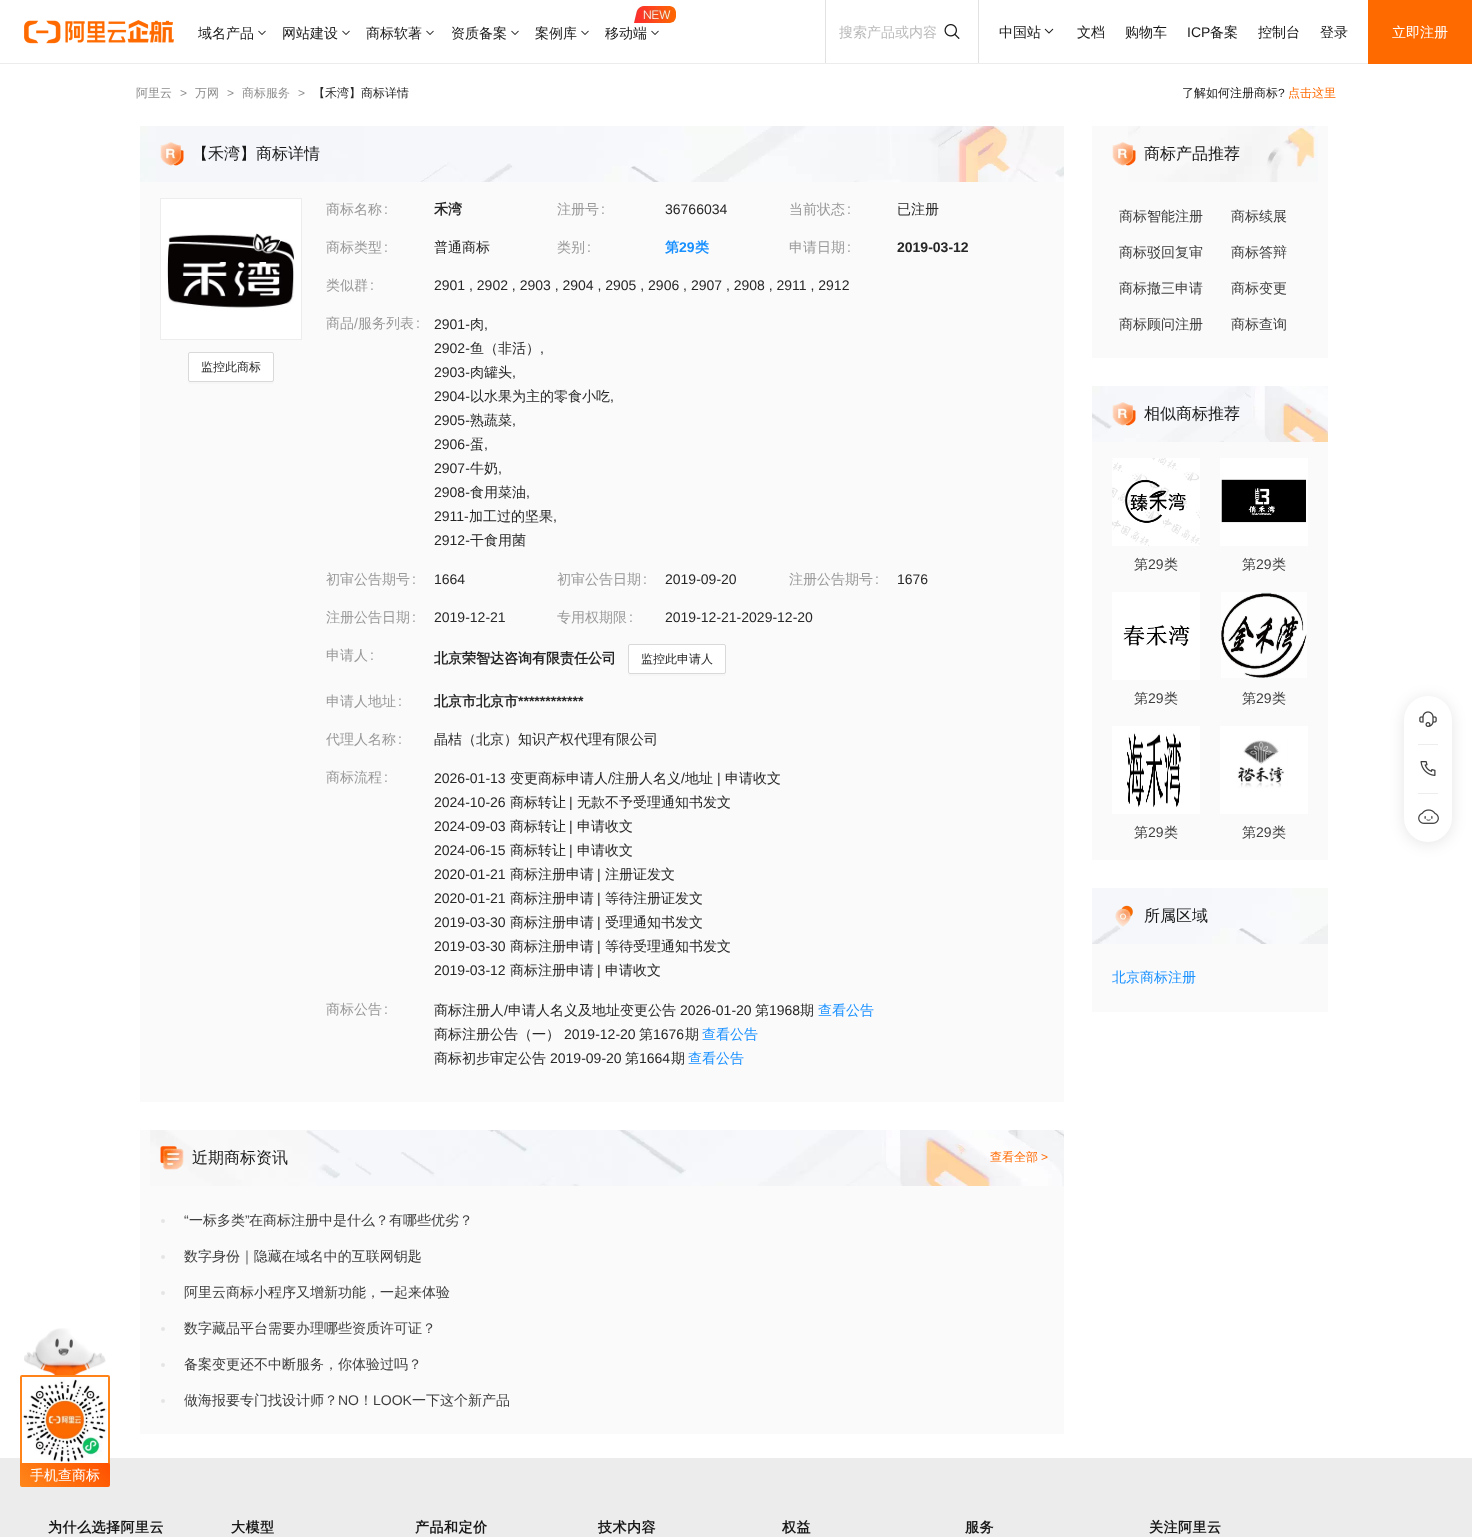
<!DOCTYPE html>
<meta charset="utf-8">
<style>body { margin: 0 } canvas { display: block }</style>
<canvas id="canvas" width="1472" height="1537"></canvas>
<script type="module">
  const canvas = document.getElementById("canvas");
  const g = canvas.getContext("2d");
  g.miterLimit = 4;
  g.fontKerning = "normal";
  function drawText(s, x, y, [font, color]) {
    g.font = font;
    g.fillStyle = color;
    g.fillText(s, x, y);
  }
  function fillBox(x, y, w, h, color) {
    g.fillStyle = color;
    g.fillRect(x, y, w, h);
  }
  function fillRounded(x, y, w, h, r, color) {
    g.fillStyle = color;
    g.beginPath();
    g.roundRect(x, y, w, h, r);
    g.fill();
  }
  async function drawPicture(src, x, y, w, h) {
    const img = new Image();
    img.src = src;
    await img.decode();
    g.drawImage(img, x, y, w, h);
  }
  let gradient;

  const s1 = ["500 14px WenQuanYi Zen Hei", "#181818"];
  const s2 = ["500 14px WenQuanYi Zen Hei", "#BABABA"];
  const s3 = ["14px Liberation Sans", "#181818"];
  const s4 = ["500 14px WenQuanYi Zen Hei", "#FFFFFF"];
  const s5 = ["500 12px WenQuanYi Zen Hei", "#8C8C8C"];
  const s6 = ["12px Liberation Sans", "#8C8C8C"];
  const s7 = ["500 12px WenQuanYi Zen Hei", "#262626"];
  const s8 = ["500 12px WenQuanYi Zen Hei", "#181818"];
  const s9 = ["12px Liberation Sans", "#181818"];
  const s10 = ["500 12px WenQuanYi Zen Hei", "#FF6A00"];
  const s11 = ["500 16px WenQuanYi Zen Hei", "#181818"];
  const s12 = ["500 14px WenQuanYi Zen Hei", "#999999"];
  const s13 = ["14px Liberation Sans", "#999999"];
  const s14 = ["bold 14px WenQuanYi Zen Hei", "#262626"];
  const s15 = ["14px Liberation Sans", "#262626"];
  const s16 = ["500 14px WenQuanYi Zen Hei", "#262626"];
  const s17 = ["bold 14px WenQuanYi Zen Hei", "#1890FF"];
  const s18 = ["bold 14px Liberation Sans", "#1890FF"];
  const s19 = ["bold 14px Liberation Sans", "#262626"];
  const s20 = ["500 14px WenQuanYi Zen Hei", "#1890FF"];
  const s21 = ["12px Liberation Sans", "#FF6A00"];
  const s22 = ["14px Liberation Sans", "#3D3D3D"];
  const s23 = ["500 14px WenQuanYi Zen Hei", "#3D3D3D"];
  const s24 = ["bold 14px WenQuanYi Zen Hei", "#181818"];

  fillBox(0, 0, 1472, 1537, "#FFFFFF");
  fillBox(0, 63, 1368, 1, "#ECECEC");
  await drawPicture("pic1.png", 24, 20, 150, 24);
  drawText("域名产品", 198, 38, s1);
  await drawPicture("pic2.png", 258, 30, 8, 5);
  drawText("网站建设", 282, 38, s1);
  await drawPicture("pic2.png", 342, 30, 8, 5);
  drawText("商标软著", 366, 38, s1);
  await drawPicture("pic2.png", 426, 30, 8, 5);
  drawText("资质备案", 451, 38, s1);
  await drawPicture("pic2.png", 511, 30, 8, 5);
  drawText("案例库", 535, 38, s1);
  await drawPicture("pic2.png", 581, 30, 8, 5);
  await drawPicture("pic3.png", 634, 6, 42, 17);
  drawText("移动端", 605, 38, s1);
  await drawPicture("pic2.png", 651, 30, 8, 5);
  fillBox(978, 0, 1, 63, "#E2E2E2");
  fillBox(825, 0, 1, 63, "#E2E2E2");
  drawText("搜索产品或内容", 839, 37, s2);
  await drawPicture("pic4.png", 944, 24, 16, 15);
  drawText("中国站", 999, 37, s1);
  await drawPicture("pic5.png", 1044, 28, 10, 6);
  drawText("文档", 1077, 37, s1);
  drawText("购物车", 1125, 37, s1);
  drawText("ICP", 1187, 37, s3);
  drawText("备案", 1210, 37, s1);
  drawText("控制台", 1258, 37, s1);
  drawText("登录", 1320, 37, s1);
  fillBox(1368, 0, 104, 64, "#FF6A00");
  drawText("立即注册", 1392, 37, s4);
  g.fillStyle = "rgba(0, 0, 0, 0.1)";
  g.filter = "blur(7.5px)";
  g.beginPath();
  g.roundRect(1404, 698, 48, 146, 24);
  g.fill();
  g.filter = "none";
  fillRounded(1404, 696, 48, 146, 24, "#FFFFFF");
  await drawPicture("pic6.png", 1419, 711, 18, 16);
  fillBox(1418, 744, 20, 1, "#EDEDEC");
  await drawPicture("pic7.png", 1420, 761, 16, 15);
  fillBox(1418, 793, 20, 1, "#EDEDEC");
  await drawPicture("pic8.png", 1418, 809, 21, 15);
  drawText("阿里云", 136, 97, s5);
  drawText(">", 180, 97, s6);
  drawText("万网", 195, 97, s5);
  drawText(">", 227, 97, s6);
  drawText("商标服务", 242, 97, s5);
  drawText(">", 298, 97, s6);
  drawText("【禾湾】商标详情", 313, 97, s7);
  drawText("了解如何注册商标", 1182, 97, s8);
  drawText("?", 1278, 97, s9);
  drawText("点击这里", 1288, 97, s10);
  fillBox(140, 182, 924, 920, "#FAFAFA");
  await drawPicture("pic9.png", 140, 126, 924, 56);
  await drawPicture("pic10.png", 160, 142, 24, 24);
  drawText("【禾湾】商标详情", 192, 159, s11);
  g.strokeStyle = "#EDEDED";
  g.strokeRect(160.5, 198.5, 141, 141);
  await drawPicture("pic11.png", 161, 199, 140, 140);
  g.fillStyle = "#F6F6F6";
  g.beginPath();
  g.moveTo(188, 380);
  g.lineTo(188, 382);
  g.bezierCurveTo(188, 383, 189, 384, 190, 384);
  g.lineTo(272, 384);
  g.bezierCurveTo(273, 384, 274, 383, 274, 382);
  g.lineTo(274, 380);
  g.bezierCurveTo(274, 381, 273, 382, 272, 382);
  g.lineTo(190, 382);
  g.bezierCurveTo(189, 382, 188, 381, 188, 380);
  g.closePath();
  g.fill();
  g.fillStyle = "#FFFFFF";
  g.beginPath();
  g.roundRect(188.5, 352.5, 85, 29, 1.5);
  g.fill();
  g.strokeStyle = "#D9D9D9";
  g.stroke();
  drawText("监控此商标", 201, 371, s7);
  drawText("商标名称", 326, 214, s12);
  drawText(":", 384, 214, s13);
  drawText("禾湾", 434, 214, s14);
  drawText("注册号", 557, 214, s12);
  drawText(":", 601, 214, s13);
  drawText("36766034", 665, 214, s15);
  drawText("当前状态", 789, 214, s12);
  drawText(":", 847, 214, s13);
  drawText("已注册", 897, 214, s16);
  drawText("商标类型", 326, 252, s12);
  drawText(":", 384, 252, s13);
  drawText("普通商标", 434, 252, s16);
  drawText("类别", 557, 252, s12);
  drawText(":", 587, 252, s13);
  drawText("第", 665, 252, s17);
  drawText("29", 679, 252, s18);
  drawText("类", 695, 252, s17);
  drawText("申请日期", 789, 252, s12);
  drawText(":", 847, 252, s13);
  drawText("2019-03-12", 897, 252, s19);
  drawText("类似群", 326, 290, s12);
  drawText(":", 370, 290, s13);
  drawText("2901 , 2902 , 2903 , 2904 , 2905 , 2906 , 2907 , 2908 , 2911 , 2912", 434, 290, s15);
  drawText("商品", 326, 328, s12);
  drawText("/", 354, 328, s13);
  drawText("服务列表", 358, 328, s12);
  drawText(":", 416, 328, s13);
  drawText("2901-", 434, 329, s15);
  drawText("肉", 470, 329, s16);
  drawText(",", 484, 329, s15);
  drawText("2902-", 434, 353, s15);
  drawText("鱼（非活）", 470, 353, s16);
  drawText(",", 540, 353, s15);
  drawText("2903-", 434, 377, s15);
  drawText("肉罐头", 470, 377, s16);
  drawText(",", 512, 377, s15);
  drawText("2904-", 434, 401, s15);
  drawText("以水果为主的零食小吃", 470, 401, s16);
  drawText(",", 610, 401, s15);
  drawText("2905-", 434, 425, s15);
  drawText("熟蔬菜", 470, 425, s16);
  drawText(",", 512, 425, s15);
  drawText("2906-", 434, 449, s15);
  drawText("蛋", 470, 449, s16);
  drawText(",", 484, 449, s15);
  drawText("2907-", 434, 473, s15);
  drawText("牛奶", 470, 473, s16);
  drawText(",", 498, 473, s15);
  drawText("2908-", 434, 497, s15);
  drawText("食用菜油", 470, 497, s16);
  drawText(",", 526, 497, s15);
  drawText("2911-", 434, 521, s15);
  drawText("加工过的坚果", 469, 521, s16);
  drawText(",", 553, 521, s15);
  drawText("2912-", 434, 545, s15);
  drawText("干食用菌", 470, 545, s16);
  drawText("初审公告期号", 326, 584, s12);
  drawText(":", 412, 584, s13);
  drawText("1664", 434, 584, s15);
  drawText("初审公告日期", 557, 584, s12);
  drawText(":", 643, 584, s13);
  drawText("2019-09-20", 665, 584, s15);
  drawText("注册公告期号", 789, 584, s12);
  drawText(":", 875, 584, s13);
  drawText("1676", 897, 584, s15);
  drawText("注册公告日期", 326, 622, s12);
  drawText(":", 412, 622, s13);
  drawText("2019-12-21", 434, 622, s15);
  drawText("专用权期限", 557, 622, s12);
  drawText(":", 629, 622, s13);
  drawText("2019-12-21-2029-12-20", 665, 622, s15);
  drawText("申请人", 326, 660, s12);
  drawText(":", 370, 660, s13);
  drawText("北京荣智达咨询有限责任公司", 434, 663, s14);
  g.fillStyle = "#F6F6F6";
  g.beginPath();
  g.moveTo(628, 672);
  g.lineTo(628, 674);
  g.bezierCurveTo(628, 675, 629, 676, 630, 676);
  g.lineTo(724, 676);
  g.bezierCurveTo(725, 676, 726, 675, 726, 674);
  g.lineTo(726, 672);
  g.bezierCurveTo(726, 673, 725, 674, 724, 674);
  g.lineTo(630, 674);
  g.bezierCurveTo(629, 674, 628, 673, 628, 672);
  g.closePath();
  g.fill();
  g.fillStyle = "#FFFFFF";
  g.beginPath();
  g.roundRect(628.5, 644.5, 97, 29, 1.5);
  g.fill();
  g.stroke();
  drawText("监控此申请人", 641, 663, s7);
  drawText("申请人地址", 326, 706, s12);
  drawText(":", 398, 706, s13);
  drawText("北京市北京市", 434, 706, s14);
  drawText("************", 518, 706, s19);
  drawText("代理人名称", 326, 744, s12);
  drawText(":", 398, 744, s13);
  drawText("晶桔（北京）知识产权代理有限公司", 434, 744, s16);
  drawText("商标流程", 326, 782, s12);
  drawText(":", 384, 782, s13);
  drawText("2026-01-13", 434, 783, s15);
  drawText("变更商标申请人", 510, 783, s16);
  drawText("/", 608, 783, s15);
  drawText("注册人名义", 611, 783, s16);
  drawText("/", 681, 783, s15);
  drawText("地址", 685, 783, s16);
  drawText("|", 717, 783, s15);
  drawText("申请收文", 725, 783, s16);
  drawText("2024-10-26", 434, 807, s15);
  drawText("商标转让", 510, 807, s16);
  drawText("|", 569, 807, s15);
  drawText("无款不予受理通知书发文", 577, 807, s16);
  drawText("2024-09-03", 434, 831, s15);
  drawText("商标转让", 510, 831, s16);
  drawText("|", 569, 831, s15);
  drawText("申请收文", 577, 831, s16);
  drawText("2024-06-15", 434, 855, s15);
  drawText("商标转让", 510, 855, s16);
  drawText("|", 569, 855, s15);
  drawText("申请收文", 577, 855, s16);
  drawText("2020-01-21", 434, 879, s15);
  drawText("商标注册申请", 510, 879, s16);
  drawText("|", 597, 879, s15);
  drawText("注册证发文", 605, 879, s16);
  drawText("2020-01-21", 434, 903, s15);
  drawText("商标注册申请", 510, 903, s16);
  drawText("|", 597, 903, s15);
  drawText("等待注册证发文", 605, 903, s16);
  drawText("2019-03-30", 434, 927, s15);
  drawText("商标注册申请", 510, 927, s16);
  drawText("|", 597, 927, s15);
  drawText("受理通知书发文", 605, 927, s16);
  drawText("2019-03-30", 434, 951, s15);
  drawText("商标注册申请", 510, 951, s16);
  drawText("|", 597, 951, s15);
  drawText("等待受理通知书发文", 605, 951, s16);
  drawText("2019-03-12", 434, 975, s15);
  drawText("商标注册申请", 510, 975, s16);
  drawText("|", 597, 975, s15);
  drawText("申请收文", 605, 975, s16);
  drawText("商标公告", 326, 1014, s12);
  drawText(":", 384, 1014, s13);
  drawText("商标注册人", 434, 1015, s16);
  drawText("/", 504, 1015, s15);
  drawText("申请人名义及地址变更公告", 508, 1015, s16);
  drawText("2026-01-20", 680, 1015, s15);
  drawText("第", 755, 1015, s16);
  drawText("1968", 769, 1015, s15);
  drawText("期", 800, 1015, s16);
  drawText("查看公告", 818, 1015, s20);
  drawText("商标注册公告（一）", 434, 1039, s16);
  drawText("2019-12-20", 564, 1039, s15);
  drawText("第", 639, 1039, s16);
  drawText("1676", 653, 1039, s15);
  drawText("期", 685, 1039, s16);
  drawText("查看公告", 702, 1039, s20);
  drawText("商标初步审定公告", 434, 1063, s16);
  drawText("2019-09-20", 550, 1063, s15);
  drawText("第", 625, 1063, s16);
  drawText("1664", 639, 1063, s15);
  drawText("期", 671, 1063, s16);
  drawText("查看公告", 688, 1063, s20);
  fillBox(140, 1130, 924, 304, "#FAFAFA");
  await drawPicture("pic12.png", 150, 1130, 914, 56);
  await drawPicture("pic13.png", 160, 1146, 24, 24);
  drawText("近期商标资讯", 192, 1163, s11);
  drawText("查看全部", 990, 1161, s10);
  drawText(">", 1041, 1161, s21);
  g.fillStyle = "#E4E4E4";
  g.beginPath();
  g.arc(163, 1221, 2, 0, Math.PI * 2);
  g.fill();
  drawText("“", 184, 1225, s22);
  drawText("一标多类", 189, 1225, s23);
  drawText("”", 245, 1225, s22);
  drawText("在商标注册中是什么？有哪些优劣？", 249, 1225, s23);
  g.fillStyle = "#E4E4E4";
  g.beginPath();
  g.arc(163, 1257, 2, 0, Math.PI * 2);
  g.fill();
  drawText("数字身份｜隐藏在域名中的互联网钥匙", 184, 1261, s23);
  g.fillStyle = "#E4E4E4";
  g.beginPath();
  g.arc(163, 1293, 2, 0, Math.PI * 2);
  g.fill();
  drawText("阿里云商标小程序又增新功能，一起来体验", 184, 1297, s23);
  g.fillStyle = "#E4E4E4";
  g.beginPath();
  g.arc(163, 1329, 2, 0, Math.PI * 2);
  g.fill();
  drawText("数字藏品平台需要办理哪些资质许可证？", 184, 1333, s23);
  g.fillStyle = "#E4E4E4";
  g.beginPath();
  g.arc(163, 1365, 2, 0, Math.PI * 2);
  g.fill();
  drawText("备案变更还不中断服务，你体验过吗？", 184, 1369, s23);
  g.fillStyle = "#E4E4E4";
  g.beginPath();
  g.arc(163, 1401, 2, 0, Math.PI * 2);
  g.fill();
  drawText("做海报要专门找设计师？", 184, 1405, s23);
  drawText("NO", 338, 1405, s22);
  drawText("！", 359, 1405, s23);
  drawText("LOOK", 373, 1405, s22);
  drawText("一下这个新产品", 412, 1405, s23);
  fillBox(1092, 126, 236, 232, "#FAFAFA");
  await drawPicture("pic14.png", 1128, 126, 190, 56);
  await drawPicture("pic15.png", 1112, 142, 24, 24);
  drawText("商标产品推荐", 1144, 159, s11);
  drawText("商标智能注册", 1119, 221, s23);
  drawText("商标续展", 1231, 221, s23);
  drawText("商标驳回复审", 1119, 257, s23);
  drawText("商标答辩", 1231, 257, s23);
  drawText("商标撤三申请", 1119, 293, s23);
  drawText("商标变更", 1231, 293, s23);
  drawText("商标顾问注册", 1119, 329, s23);
  drawText("商标查询", 1231, 329, s23);
  fillBox(1092, 442, 236, 418, "#FAFAFA");
  await drawPicture("pic16.png", 1092, 386, 236, 56);
  await drawPicture("pic17.png", 1112, 402, 24, 24);
  drawText("相似商标推荐", 1144, 419, s11);
  await drawPicture("pic18.png", 1112, 458, 88, 88);
  drawText("第", 1134, 569, s23);
  drawText("29", 1148, 569, s22);
  drawText("类", 1164, 569, s23);
  await drawPicture("pic19.png", 1220, 458, 88, 88);
  drawText("第", 1242, 569, s23);
  drawText("29", 1256, 569, s22);
  drawText("类", 1272, 569, s23);
  await drawPicture("pic20.png", 1112, 592, 88, 88);
  drawText("第", 1134, 703, s23);
  drawText("29", 1148, 703, s22);
  drawText("类", 1164, 703, s23);
  await drawPicture("pic21.png", 1221, 592, 86, 86);
  drawText("第", 1242, 703, s23);
  drawText("29", 1256, 703, s22);
  drawText("类", 1272, 703, s23);
  await drawPicture("pic22.png", 1112, 726, 88, 88);
  drawText("第", 1134, 837, s23);
  drawText("29", 1148, 837, s22);
  drawText("类", 1164, 837, s23);
  await drawPicture("pic23.png", 1220, 726, 88, 88);
  drawText("第", 1242, 837, s23);
  drawText("29", 1256, 837, s22);
  drawText("类", 1272, 837, s23);
  fillBox(1092, 944, 236, 68, "#FAFAFA");
  await drawPicture("pic24.png", 1092, 888, 236, 56);
  await drawPicture("pic25.png", 1115, 905, 18, 22);
  drawText("所属区域", 1144, 921, s11);
  drawText("北京商标注册", 1112, 982, s20);
  await drawPicture("pic26.png", 24, 1328, 82, 47);
  fillBox(0, 1458, 1472, 79, "#ECECEC");
  g.beginPath();
  g.roundRect(21, 1376, 88, 88, [1, 1, 0, 0]);
  g.strokeStyle = "#FF8319";
  g.lineWidth = 2;
  g.stroke();
  await drawPicture("pic27.png", 22, 1377, 86, 86);
  gradient = g.createLinearGradient(37, 1504, 94, 1447);
  gradient.addColorStop(0, "#FF871A");
  gradient.addColorStop(1, "#FF5000");
  g.fillStyle = gradient;
  g.beginPath();
  g.roundRect(20, 1463, 90, 24, 2);
  g.fill();
  drawText("手机查商标", 30, 1480, s4);
  g.letterSpacing = "0.5px";
  drawText("为什么选择阿里云", 48, 1532, s24);
  drawText("大模型", 231, 1532, s24);
  drawText("产品和定价", 415, 1532, s24);
  drawText("技术内容", 598, 1532, s24);
  drawText("权益", 782, 1532, s24);
  drawText("服务", 965, 1532, s24);
  drawText("关注阿里云", 1149, 1532, s24);
</script>
